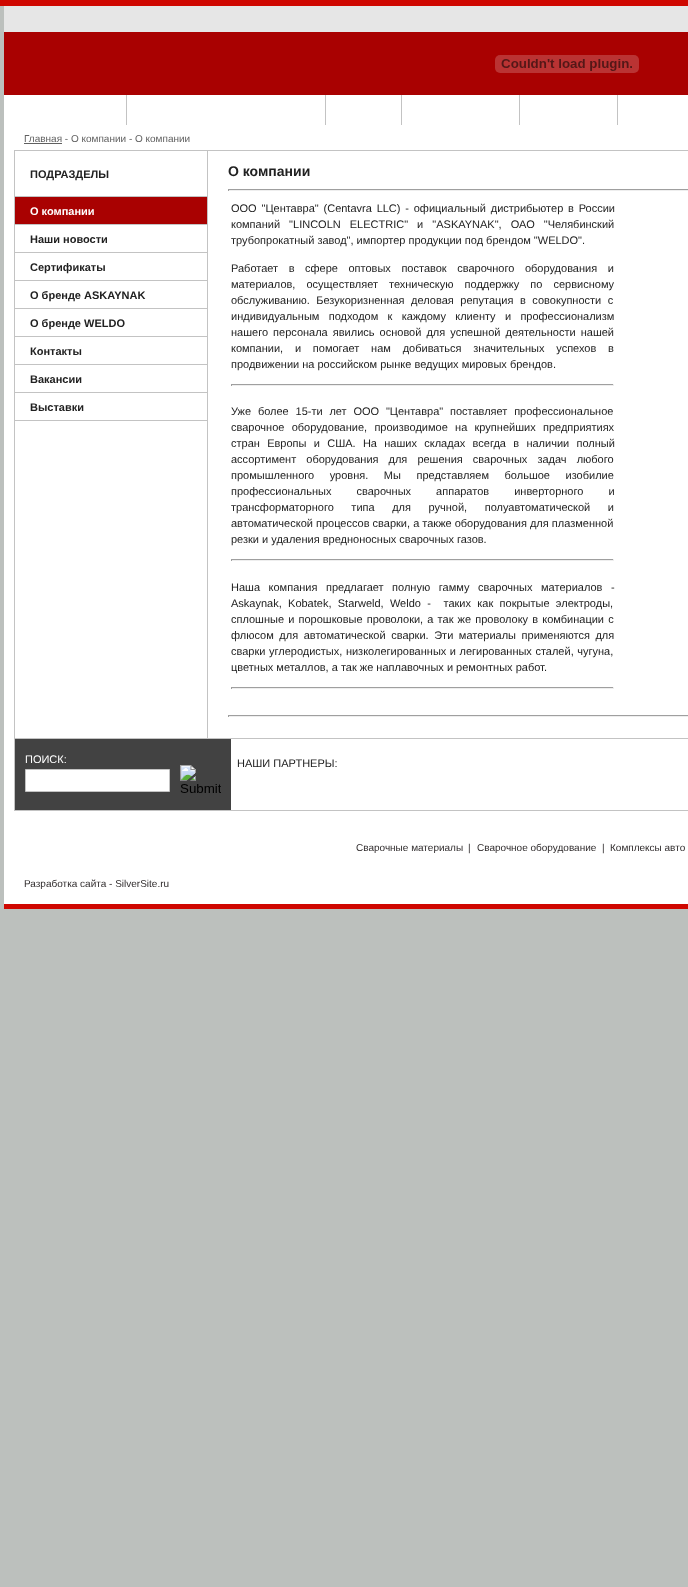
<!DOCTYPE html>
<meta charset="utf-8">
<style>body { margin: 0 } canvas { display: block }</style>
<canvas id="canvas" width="688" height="1587"></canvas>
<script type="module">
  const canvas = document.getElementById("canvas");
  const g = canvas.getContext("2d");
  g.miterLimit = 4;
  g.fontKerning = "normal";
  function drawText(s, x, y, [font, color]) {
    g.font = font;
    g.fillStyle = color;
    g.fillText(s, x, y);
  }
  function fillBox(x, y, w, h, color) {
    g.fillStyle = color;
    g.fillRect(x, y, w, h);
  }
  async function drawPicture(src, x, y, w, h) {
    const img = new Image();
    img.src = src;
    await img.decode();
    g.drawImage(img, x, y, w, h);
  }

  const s1 = ["10px Liberation Sans", "#606060"];
  const s2 = ["bold 11px Liberation Sans", "#212121"];
  const s3 = ["bold 11px Liberation Sans", "#FFFFFF"];
  const s4 = ["bold 14px Liberation Sans", "#212121"];
  const s5 = ["11px Liberation Sans", "#212121"];
  const s6 = ["11px Liberation Sans", "#FFFFFF"];
  const s7 = ["10px Liberation Sans", "#302C2D"];

  fillBox(0, 0, 688, 1587, "#BCC0BD");
  fillBox(0, 0, 688, 6, "#CF0700");
  fillBox(4, 95, 684, 809, "#FFFFFF");
  fillBox(4, 6, 684, 26, "#E6E6E6");
  fillBox(4, 32, 684, 63, "#A90101");
  await drawPicture("pic1.png", 495, 55, 144, 18);
  fillBox(126, 95, 1, 30, "#C3C3C3");
  fillBox(325, 95, 1, 30, "#C3C3C3");
  fillBox(401, 95, 1, 30, "#C3C3C3");
  fillBox(519, 95, 1, 30, "#C3C3C3");
  fillBox(617, 95, 1, 30, "#C3C3C3");
  drawText("Главная - О компании - О компании", 24, 142, s1);
  fillBox(24, 143, 38, 1, "#606060");
  fillBox(14, 150, 674, 1, "#C3C3C3");
  fillBox(14, 150, 1, 588, "#C3C3C3");
  fillBox(207, 151, 1, 587, "#C3C3C3");
  fillBox(15, 420, 192, 1, "#C3C3C3");
  drawText("ПОДРАЗДЕЛЫ", 30, 178, s2);
  fillBox(15, 197, 192, 27, "#A90101");
  fillBox(15, 196, 192, 1, "#C3C3C3");
  drawText("О компании", 30, 215, s3);
  fillBox(15, 224, 192, 1, "#C3C3C3");
  drawText("Наши новости", 30, 243, s2);
  fillBox(15, 252, 192, 1, "#C3C3C3");
  drawText("Сертификаты", 30, 271, s2);
  fillBox(15, 280, 192, 1, "#C3C3C3");
  drawText("О бренде ASKAYNAK", 30, 299, s2);
  fillBox(15, 308, 192, 1, "#C3C3C3");
  drawText("О бренде WELDO", 30, 327, s2);
  fillBox(15, 336, 192, 1, "#C3C3C3");
  drawText("Контакты", 30, 355, s2);
  fillBox(15, 364, 192, 1, "#C3C3C3");
  drawText("Вакансии", 30, 383, s2);
  fillBox(15, 392, 192, 1, "#C3C3C3");
  drawText("Выставки", 30, 411, s2);
  drawText("О компании", 228, 176, s4);
  fillBox(228, 189, 460, 1, "#9F9F9F");
  fillBox(228, 190, 460, 1, "#EEEEEE");
  fillBox(228, 189, 1, 2, "#9F9F9F");
  g.wordSpacing = "1.75px";
  drawText("ООО \"Центавра\" (Centavra LLC) - официальный дистрибьютер в России", 231, 212, s5);
  g.wordSpacing = "6px";
  drawText("компаний \"LINCOLN ELECTRIC\" и \"ASKAYNAK\", ОАО \"Челябинский", 231, 228, s5);
  g.wordSpacing = "0px";
  drawText("трубопрокатный завод\", импортер продукции под брендом \"WELDO\".", 231, 244, s5);
  g.wordSpacing = "7.5px";
  drawText("Работает в сфере оптовых поставок сварочного оборудования и", 231, 272, s5);
  g.wordSpacing = "8px";
  drawText("материалов, осуществляет техническую поддержку по сервисному", 231, 288, s5);
  g.wordSpacing = "3.5px";
  drawText("обслуживанию. Безукоризненная деловая репутация в совокупности с", 231, 304, s5);
  g.wordSpacing = "6.25px";
  drawText("индивидуальным подходом к каждому клиенту и профессионализм", 231, 320, s5);
  g.wordSpacing = "2px";
  drawText("нашего персонала явились основой для успешной деятельности нашей", 231, 336, s5);
  g.wordSpacing = "8.75px";
  drawText("компании, и помогает нам добиваться значительных успехов в", 231, 352, s5);
  g.wordSpacing = "0px";
  drawText("продвижении на российском рынке ведущих мировых брендов.", 231, 368, s5);
  fillBox(231, 384, 383, 1, "#9F9F9F");
  fillBox(613, 384, 1, 2, "#EEEEEE");
  fillBox(231, 385, 383, 1, "#EEEEEE");
  fillBox(231, 384, 1, 2, "#9F9F9F");
  g.wordSpacing = "3.75px";
  drawText("Уже более 15-ти лет ООО \"Центавра\" поставляет профессиональное", 231, 415, s5);
  g.wordSpacing = "4.25px";
  drawText("сварочное оборудование, производимое на крупнейших предприятиях", 231, 431, s5);
  drawText("стран Европы и США. На наших складах всегда в наличии полный", 231, 447, s5);
  g.wordSpacing = "7px";
  drawText("ассортимент оборудования для решения сварочных задач любого", 231, 463, s5);
  g.wordSpacing = "12.5px";
  drawText("промышленного уровня. Мы представляем большое изобилие", 231, 479, s5);
  g.wordSpacing = "22px";
  drawText("профессиональных сварочных аппаратов инверторного и", 231, 495, s5);
  g.wordSpacing = "14.5px";
  drawText("трансформаторного типа для ручной, полуавтоматической и", 231, 511, s5);
  g.wordSpacing = "0px";
  drawText("автоматической процессов сварки, а также оборудования для плазменной", 231, 527, s5);
  drawText("резки и удаления вредноносных сварочных газов.", 231, 543, s5);
  fillBox(231, 559, 383, 1, "#9F9F9F");
  fillBox(613, 559, 1, 2, "#EEEEEE");
  fillBox(231, 560, 383, 1, "#EEEEEE");
  fillBox(231, 559, 1, 2, "#9F9F9F");
  g.wordSpacing = "5.5px";
  drawText("Наша компания предлагает полную гамму сварочных материалов -", 231, 591, s5);
  g.wordSpacing = "3.25px";
  drawText("Askaynak, Kobatek, Starweld, Weldo -  таких как покрытые электроды,", 231, 607, s5);
  g.wordSpacing = "1.1px";
  drawText("сплошные и порошковые проволоки, а так же проволоку в комбинации с", 231, 623, s5);
  g.wordSpacing = "2.5px";
  drawText("флюсом для автоматической сварки. Эти материалы применяются для", 231, 639, s5);
  g.wordSpacing = "0.5px";
  drawText("сварки углеродистых, низколегированных и легированных сталей, чугуна,", 231, 655, s5);
  g.wordSpacing = "0px";
  drawText("цветных металлов, а так же наплавочных и ремонтных работ.", 231, 671, s5);
  fillBox(231, 687, 383, 1, "#9F9F9F");
  fillBox(613, 687, 1, 2, "#EEEEEE");
  fillBox(231, 688, 383, 1, "#EEEEEE");
  fillBox(231, 687, 1, 2, "#9F9F9F");
  fillBox(228, 715, 460, 1, "#9F9F9F");
  fillBox(228, 716, 460, 1, "#EEEEEE");
  fillBox(228, 715, 1, 2, "#9F9F9F");
  fillBox(15, 739, 216, 71, "#424242");
  fillBox(14, 738, 674, 1, "#C3C3C3");
  fillBox(14, 810, 674, 1, "#C3C3C3");
  fillBox(14, 738, 1, 73, "#C3C3C3");
  drawText("ПОИСК:", 25, 763, s6);
  g.beginPath();
  g.rect(25.5, 769.5, 144, 22);
  g.fill();
  g.strokeStyle = "#C3C3C3";
  g.stroke();
  await drawPicture("pic2.png", 180, 765, 41, 28);
  drawText("НАШИ ПАРТНЕРЫ:", 237, 767, s5);
  drawText("Сварочные материалы", 356, 851, s7);
  drawText("|", 468, 851, s7);
  drawText("Сварочное оборудование", 477, 851, s7);
  drawText("|", 602, 851, s7);
  drawText("Комплексы авто", 610, 851, s7);
  drawText("Разработка сайта - SilverSite.ru", 24, 887, s7);
  fillBox(4, 904, 684, 5, "#CF0700");
</script>
